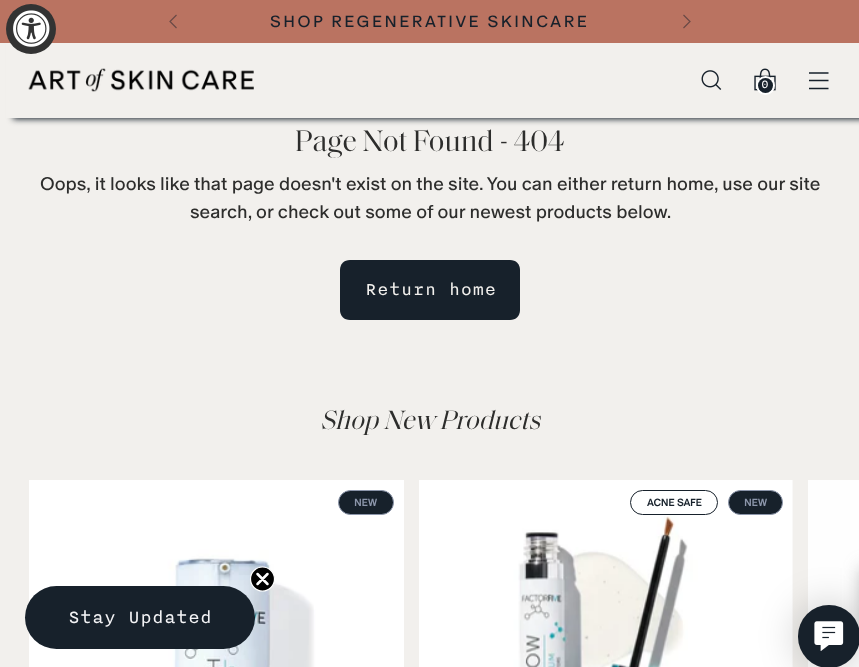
<!DOCTYPE html>
<meta charset="utf-8">
<style>body { margin: 0 } canvas { display: block }</style>
<canvas id="canvas" width="859" height="667"></canvas>
<script type="module">
  const canvas = document.getElementById("canvas");
  const g = canvas.getContext("2d");
  g.miterLimit = 4;
  g.fontKerning = "normal";
  function drawText(s, x, y, [font, color]) {
    g.font = font;
    g.fillStyle = color;
    g.fillText(s, x, y);
  }
  function fillBox(x, y, w, h, color) {
    g.fillStyle = color;
    g.fillRect(x, y, w, h);
  }
  function fillRounded(x, y, w, h, r, color) {
    g.fillStyle = color;
    g.beginPath();
    g.roundRect(x, y, w, h, r);
    g.fill();
  }
  async function drawPicture(src, x, y, w, h) {
    const img = new Image();
    img.src = src;
    await img.decode();
    g.drawImage(img, x, y, w, h);
  }

  const s1 = ["16.25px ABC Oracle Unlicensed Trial", "#17212B"];
  const s2 = ["13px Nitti", "#FFFFFF"];
  const s3 = ["30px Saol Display", "#2D2D2C"];
  const s4 = ["18.35px ABC Oracle Unlicensed Trial", "#2D2D2C"];
  const s5 = ["19.5px Nitti", "#F2F0ED"];
  const s6 = ["italic 26.75px Saol Display", "#2D2D2C"];
  const s7 = ["bold 10px ABC Oracle Unlicensed Trial", "#8C96AB"];
  const s8 = ["bold 10px ABC Oracle Unlicensed Trial", "#17212B"];
  const s9 = ["20px Nitti", "#F3F3F5"];

  fillBox(0, 0, 859, 667, "#F2F0ED");
  g.fillStyle = "#17212B";
  g.filter = "blur(3px)";
  g.beginPath();
  g.rect(13, 44, 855, 75);
  g.fill();
  g.filter = "none";
  fillBox(0, 0, 859, 43, "#BA7361");
  fillBox(6, 43, 853, 75, "#F2F0ED");
  g.fillStyle = "#333333";
  g.beginPath();
  g.arc(31, 29, 25, 0, Math.PI * 2);
  g.fill();
  await drawPicture("pic1.png", 13, 10, 37, 37);
  g.beginPath();
  g.moveTo(176.5, 15);
  g.lineTo(170, 21.5);
  g.lineTo(176.5, 28);
  g.strokeStyle = "#694A46";
  g.lineWidth = 1.2;
  g.stroke();
  g.beginPath();
  g.moveTo(683.5, 28);
  g.lineTo(690, 21.5);
  g.lineTo(683.5, 15);
  g.stroke();
  g.letterSpacing = "2.5px";
  drawText("SHOP REGENERATIVE SKINCARE", 270, 27, s1);
  await drawPicture("pic2.png", 28, 68, 226, 24);
  await drawPicture("pic3.png", 701, 70, 21, 20);
  await drawPicture("pic4.png", 754, 68, 22, 23);
  g.beginPath();
  g.arc(765.5, 85.5, 8.5, 0, Math.PI * 2);
  g.strokeStyle = "#FFFFFF";
  g.lineWidth = 2;
  g.stroke();
  g.beginPath();
  g.arc(765.5, 85.5, 7.5, 0, Math.PI * 2);
  g.fill();
  g.letterSpacing = "0px";
  drawText("0", 761, 88, s2);
  g.beginPath();
  g.moveTo(809, 80.5);
  g.lineTo(828.5, 80.5);
  g.moveTo(809, 73);
  g.lineTo(828.5, 73);
  g.moveTo(809, 88.5);
  g.lineTo(828.5, 88.5);
  g.strokeStyle = "#17212B";
  g.lineWidth = 1.4;
  g.stroke();
  drawText("Page Not Found - 404", 295, 151, s3);
  drawText("Oops, it looks like that page doesn't exist on the site. You can either return home, use our site", 40, 190, s4);
  drawText("search, or check out some of our newest products below.", 190, 218, s4);
  g.fillStyle = "#17212B";
  g.beginPath();
  g.moveTo(350, 260);
  g.bezierCurveTo(344, 260, 340, 264, 340, 270);
  g.lineTo(340, 310);
  g.bezierCurveTo(340, 316, 344, 320, 350, 320);
  g.lineTo(510, 320);
  g.bezierCurveTo(516, 320, 520, 316, 520, 310);
  g.lineTo(520, 270);
  g.bezierCurveTo(520, 264, 516, 260, 510, 260);
  g.closePath();
  g.fill();
  g.letterSpacing = "0.25px";
  drawText("Return home", 365, 295, s5);
  g.letterSpacing = "0px";
  drawText("Shop New Products", 320, 429, s6);
  await drawPicture("pic5.png", 29, 480, 375, 187);
  g.fillStyle = "#17212B";
  g.beginPath();
  g.roundRect(338.5, 490.5, 55, 24, 12);
  g.fill();
  g.strokeStyle = "#8C96AB";
  g.lineWidth = 1;
  g.stroke();
  drawText("NEW", 354, 506, s7);
  await drawPicture("pic6.png", 419, 480, 374, 187);
  g.fillStyle = "#FFFFFF";
  g.beginPath();
  g.roundRect(630.5, 490.5, 87, 24, 12);
  g.fill();
  g.strokeStyle = "#17212B";
  g.stroke();
  drawText("ACNE SAFE", 647, 506, s8);
  g.beginPath();
  g.roundRect(728.5, 490.5, 54, 24, 12);
  g.fill();
  g.strokeStyle = "#8C96AB";
  g.stroke();
  drawText("NEW", 744, 506, s7);
  fillBox(808, 480, 51, 187, "#FEFEFE");
  g.fillStyle = "rgba(117, 117, 117, 0.5)";
  g.filter = "blur(9px)";
  g.beginPath();
  g.rect(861, 568, 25, 62);
  g.fill();
  g.filter = "none";
  fillRounded(25, 586, 230, 63, 31.5, "#17212B");
  g.fillStyle = "#000000";
  g.beginPath();
  g.arc(262.5, 579, 12, 0, Math.PI * 2);
  g.fill();
  g.strokeStyle = "#FFFFFF";
  g.lineWidth = 1.2;
  g.stroke();
  g.beginPath();
  g.moveTo(257.5, 574);
  g.lineTo(267.5, 584);
  g.moveTo(257.5, 584);
  g.lineTo(267.5, 574);
  g.closePath();
  g.lineWidth = 2.5;
  g.lineCap = "round";
  g.lineJoin = "round";
  g.stroke();
  drawText("Stay Updated", 68, 623, s9);
  g.fillStyle = "rgba(0, 0, 0, 0.2)";
  g.filter = "blur(19px)";
  g.beginPath();
  g.roundRect(796, 604, 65, 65, 32.5);
  g.fill();
  g.filter = "none";
  fillRounded(798, 605, 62, 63, 31, "#17212B");
  await drawPicture("pic7.png", 814, 621, 30, 30);
</script>
